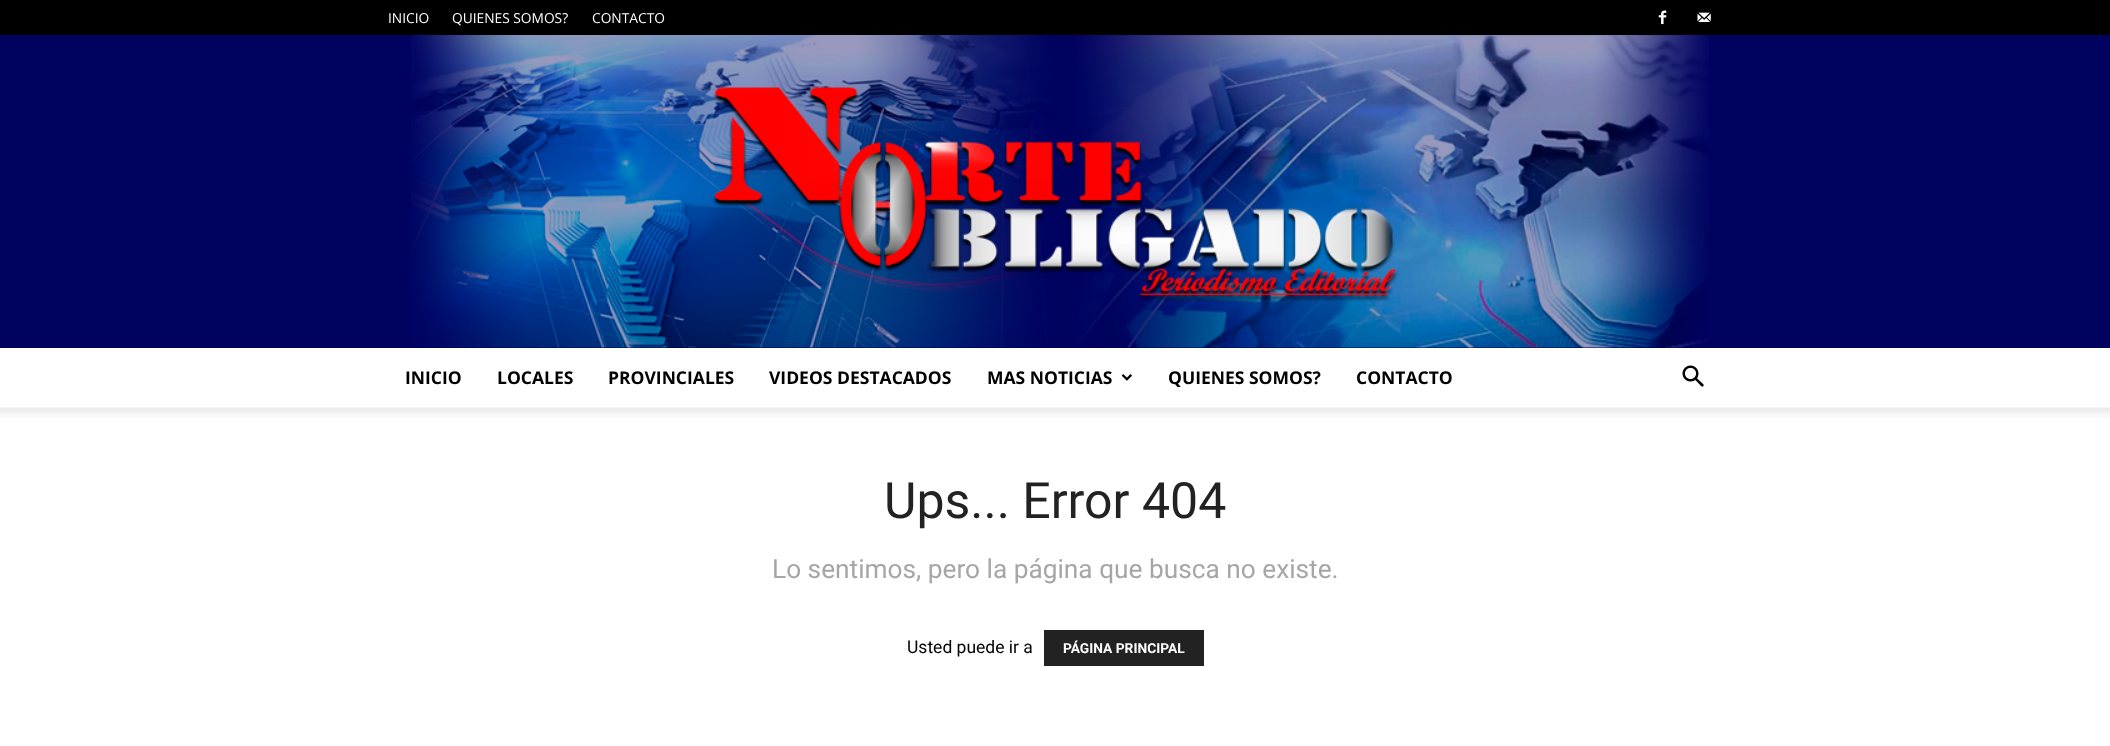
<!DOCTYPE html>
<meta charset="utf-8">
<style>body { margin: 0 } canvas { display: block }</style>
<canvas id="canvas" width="2110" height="746"></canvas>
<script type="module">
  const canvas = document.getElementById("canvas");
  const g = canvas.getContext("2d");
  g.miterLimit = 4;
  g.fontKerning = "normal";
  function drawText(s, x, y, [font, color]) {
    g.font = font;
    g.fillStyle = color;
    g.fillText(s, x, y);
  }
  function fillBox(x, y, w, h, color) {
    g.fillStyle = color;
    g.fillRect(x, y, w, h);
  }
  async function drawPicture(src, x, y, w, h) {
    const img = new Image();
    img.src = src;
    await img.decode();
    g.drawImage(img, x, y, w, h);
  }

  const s1 = ["13.75px Open Sans", "#FFFFFF"];
  const s2 = ["bold 17.5px Open Sans", "#000000"];
  const s3 = ["50px Roboto", "#222222"];
  const s4 = ["26.25px Roboto", "#A6A6A6"];
  const s5 = ["17.5px Roboto", "#000000"];
  const s6 = ["bold 13.75px Roboto", "#FFFFFF"];

  fillBox(0, 0, 2110, 746, "#FFFFFF");
  fillBox(0, 0, 2110, 35, "#000000");
  drawText("INICIO", 388, 23, s1);
  drawText("QUIENES SOMOS?", 452, 23, s1);
  drawText("CONTACTO", 592, 23, s1);
  await drawPicture("pic1.png", 1658, 10, 9, 15);
  await drawPicture("pic2.png", 1697, 12, 14, 10);
  fillBox(0, 35, 2110, 313, "#000260");
  await drawPicture("pic3.png", 411, 35, 1298, 313);
  drawText("INICIO", 405, 384, s2);
  drawText("LOCALES", 497, 384, s2);
  drawText("PROVINCIALES", 608, 384, s2);
  drawText("VIDEOS DESTACADOS", 769, 384, s2);
  drawText("MAS NOTICIAS", 987, 384, s2);
  await drawPicture("pic4.png", 1121, 374, 11, 7);
  drawText("QUIENES SOMOS?", 1168, 384, s2);
  drawText("CONTACTO", 1356, 384, s2);
  await drawPicture("pic5.png", 1682, 365, 22, 22);
  await drawPicture("pic6.png", 0, 407, 2110, 11);
  drawText("Ups... Error 404", 884, 518, s3);
  drawText("Lo sentimos, pero la página que busca no existe.", 772, 578, s4);
  drawText("Usted puede ir a", 907, 653, s5);
  fillBox(1044, 630, 160, 36, "#222222");
  drawText("PÁGINA PRINCIPAL", 1063, 653, s6);
</script>
